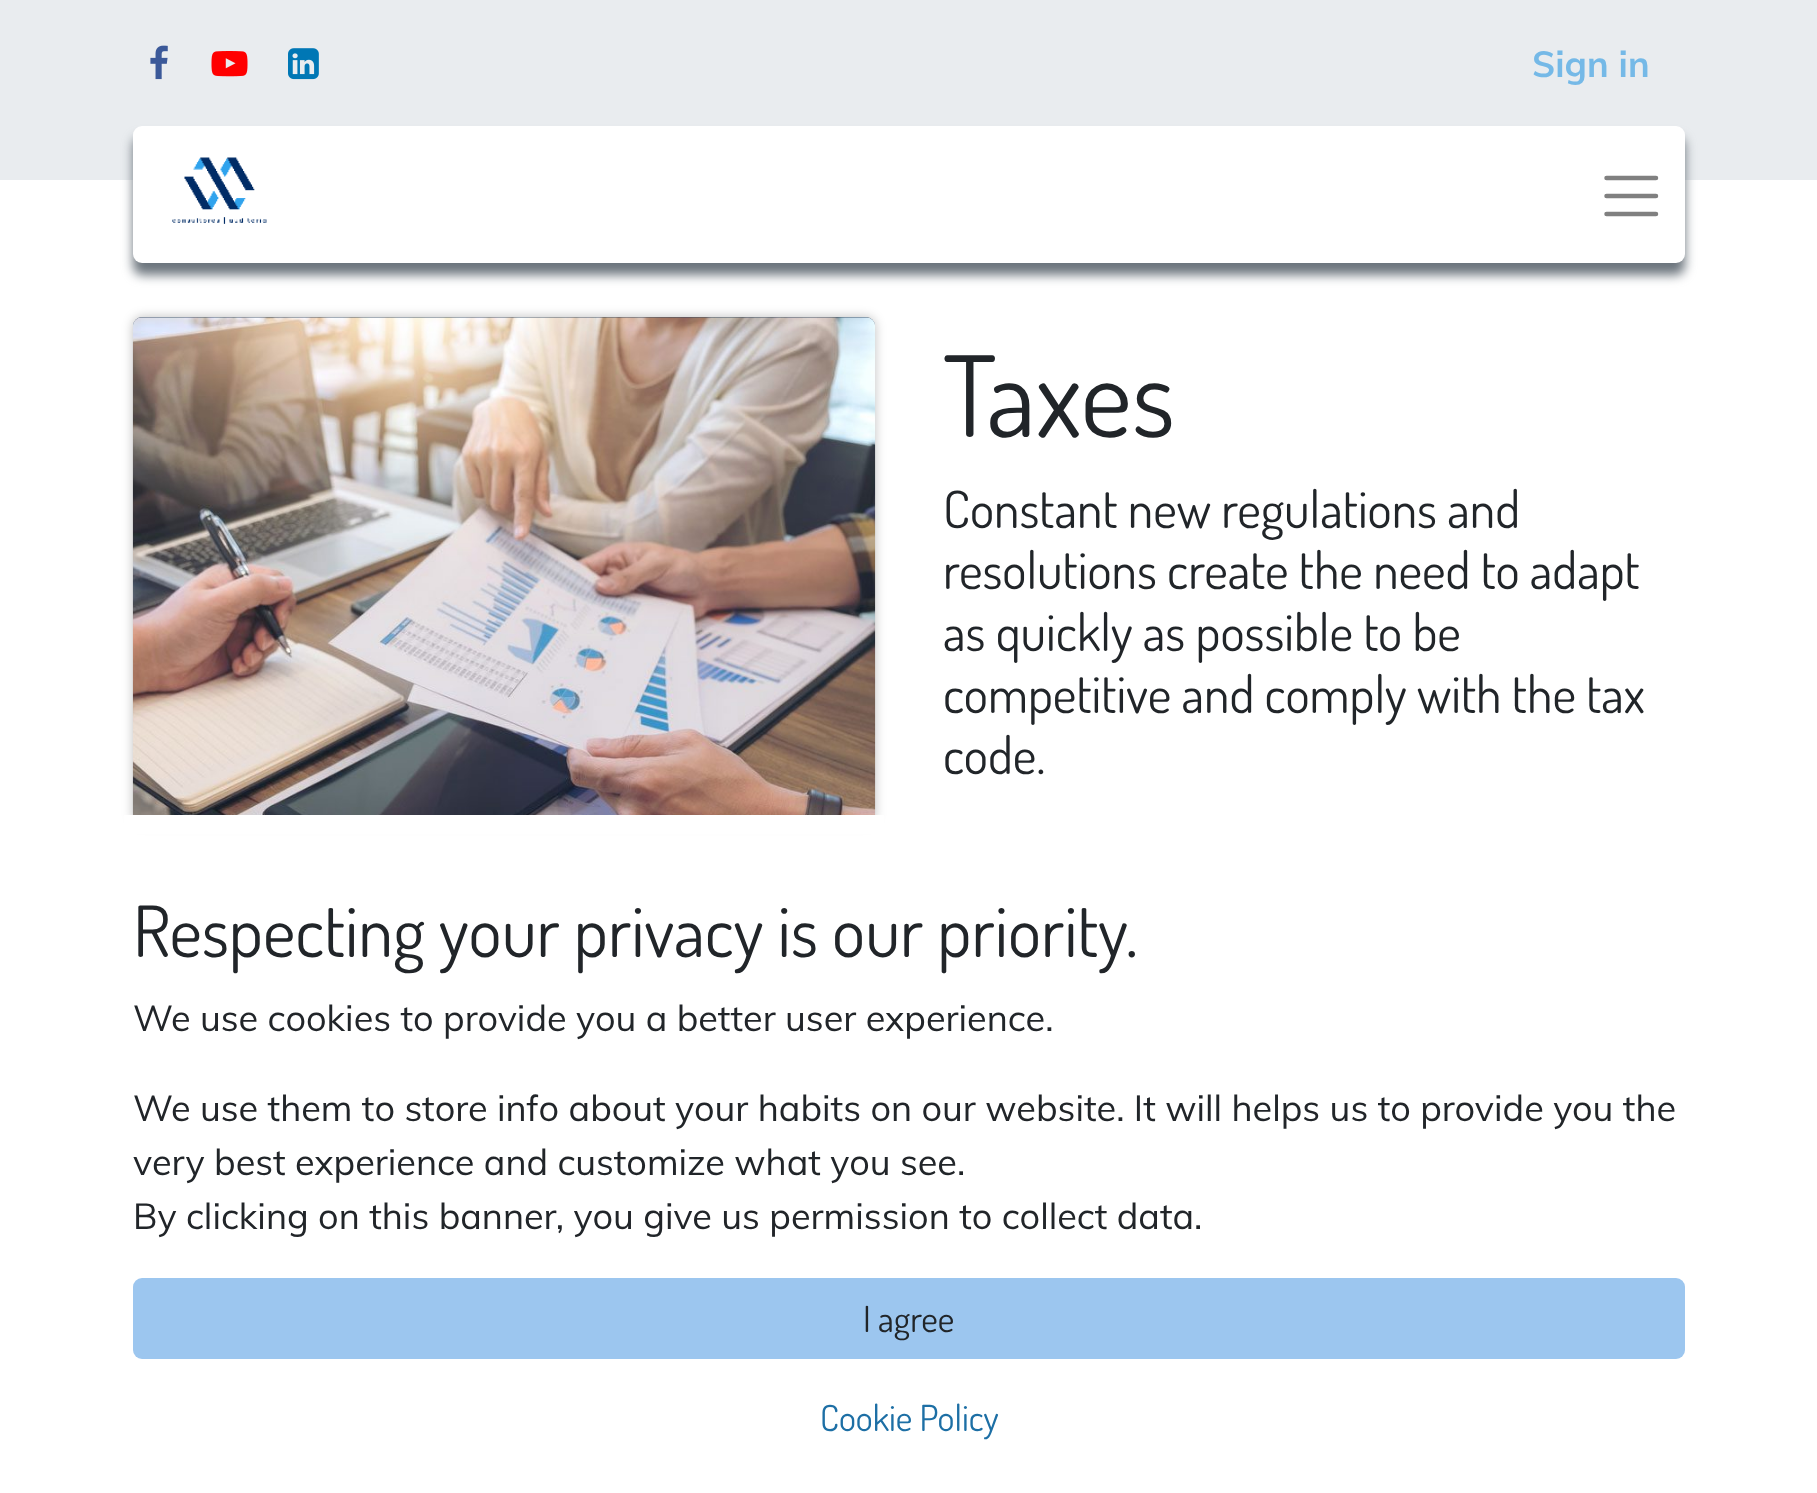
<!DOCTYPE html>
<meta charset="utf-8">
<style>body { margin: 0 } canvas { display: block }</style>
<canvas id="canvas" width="1817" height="1493"></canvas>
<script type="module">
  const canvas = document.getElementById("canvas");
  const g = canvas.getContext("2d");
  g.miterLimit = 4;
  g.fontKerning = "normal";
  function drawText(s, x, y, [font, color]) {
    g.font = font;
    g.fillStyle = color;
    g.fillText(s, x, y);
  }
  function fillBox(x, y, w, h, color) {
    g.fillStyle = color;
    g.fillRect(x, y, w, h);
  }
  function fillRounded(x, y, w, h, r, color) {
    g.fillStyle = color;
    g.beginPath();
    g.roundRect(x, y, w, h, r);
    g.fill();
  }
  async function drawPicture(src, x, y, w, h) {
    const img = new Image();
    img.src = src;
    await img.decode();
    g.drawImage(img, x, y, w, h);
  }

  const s1 = ["bold 36px Muli", "#75B9E7"];
  const s2 = ["112px Dosis", "#212529"];
  const s3 = ["51.4px Dosis", "#212529"];
  const s4 = ["70.4px Dosis", "#212529"];
  const s5 = ["36px Muli", "#212529"];
  const s6 = ["36px Dosis", "#212529"];
  const s7 = ["36px Dosis", "#1D6FA5"];

  fillBox(0, 0, 1817, 1493, "#FFFFFF");
  fillBox(0, 0, 1817, 180, "#E9ECEF");
  await drawPicture("pic1.png", 150, 45, 18, 35);
  await drawPicture("pic2.png", 211, 51, 37, 26);
  await drawPicture("pic3.png", 288, 48, 31, 32);
  drawText("Sign in", 1532, 77, s1);
  g.fillStyle = "#6C757D";
  g.filter = "blur(5.5px)";
  g.beginPath();
  g.roundRect(133, 137, 1552, 138, 9);
  g.fill();
  g.filter = "none";
  fillRounded(133, 126, 1552, 137, 9, "#FFFFFF");
  await drawPicture("pic4.png", 172, 157, 95, 67);
  g.beginPath();
  g.moveTo(1606.5, 178);
  g.lineTo(1656, 178);
  g.moveTo(1606.5, 196);
  g.lineTo(1656, 196);
  g.moveTo(1606.5, 214);
  g.lineTo(1656, 214);
  g.strokeStyle = "#808080";
  g.lineWidth = 4.5;
  g.lineCap = "round";
  g.stroke();
  g.fillStyle = "rgba(0, 0, 0, 0.25)";
  g.filter = "blur(5.5px)";
  g.beginPath();
  g.roundRect(133, 317, 742, 507, 9);
  g.fill();
  g.filter = "none";
  fillRounded(133, 317, 742, 507, 9, "#34495E");
  await drawPicture("pic5.png", 132, 317, 744, 498);
  drawText("Taxes", 943, 437, s2);
  drawText("Constant new regulations and", 943, 528, s3);
  drawText("resolutions create the need to adapt", 943, 589, s3);
  drawText("as quickly as possible to be", 943, 651, s3);
  drawText("competitive and comply with the tax", 943, 713, s3);
  drawText("code.", 943, 774, s3);
  fillBox(124, 815, 760, 19, "#FFFFFF");
  drawText("Respecting your privacy is our priority.", 133, 957, s4);
  drawText("We use cookies to provide you a better user experience.", 133, 1031, s5);
  drawText("We use them to store info about your habits on our website. It will helps us to provide you the", 133, 1121, s5);
  drawText("very best experience and customize what you see.", 133, 1175, s5);
  drawText("By clicking on this banner, you give us permission to collect data.", 133, 1229, s5);
  fillRounded(133, 1278, 1552, 81, 9, "#9CC6EF");
  drawText("I agree", 863, 1332, s6);
  drawText("Cookie Policy", 820, 1431, s7);
</script>
